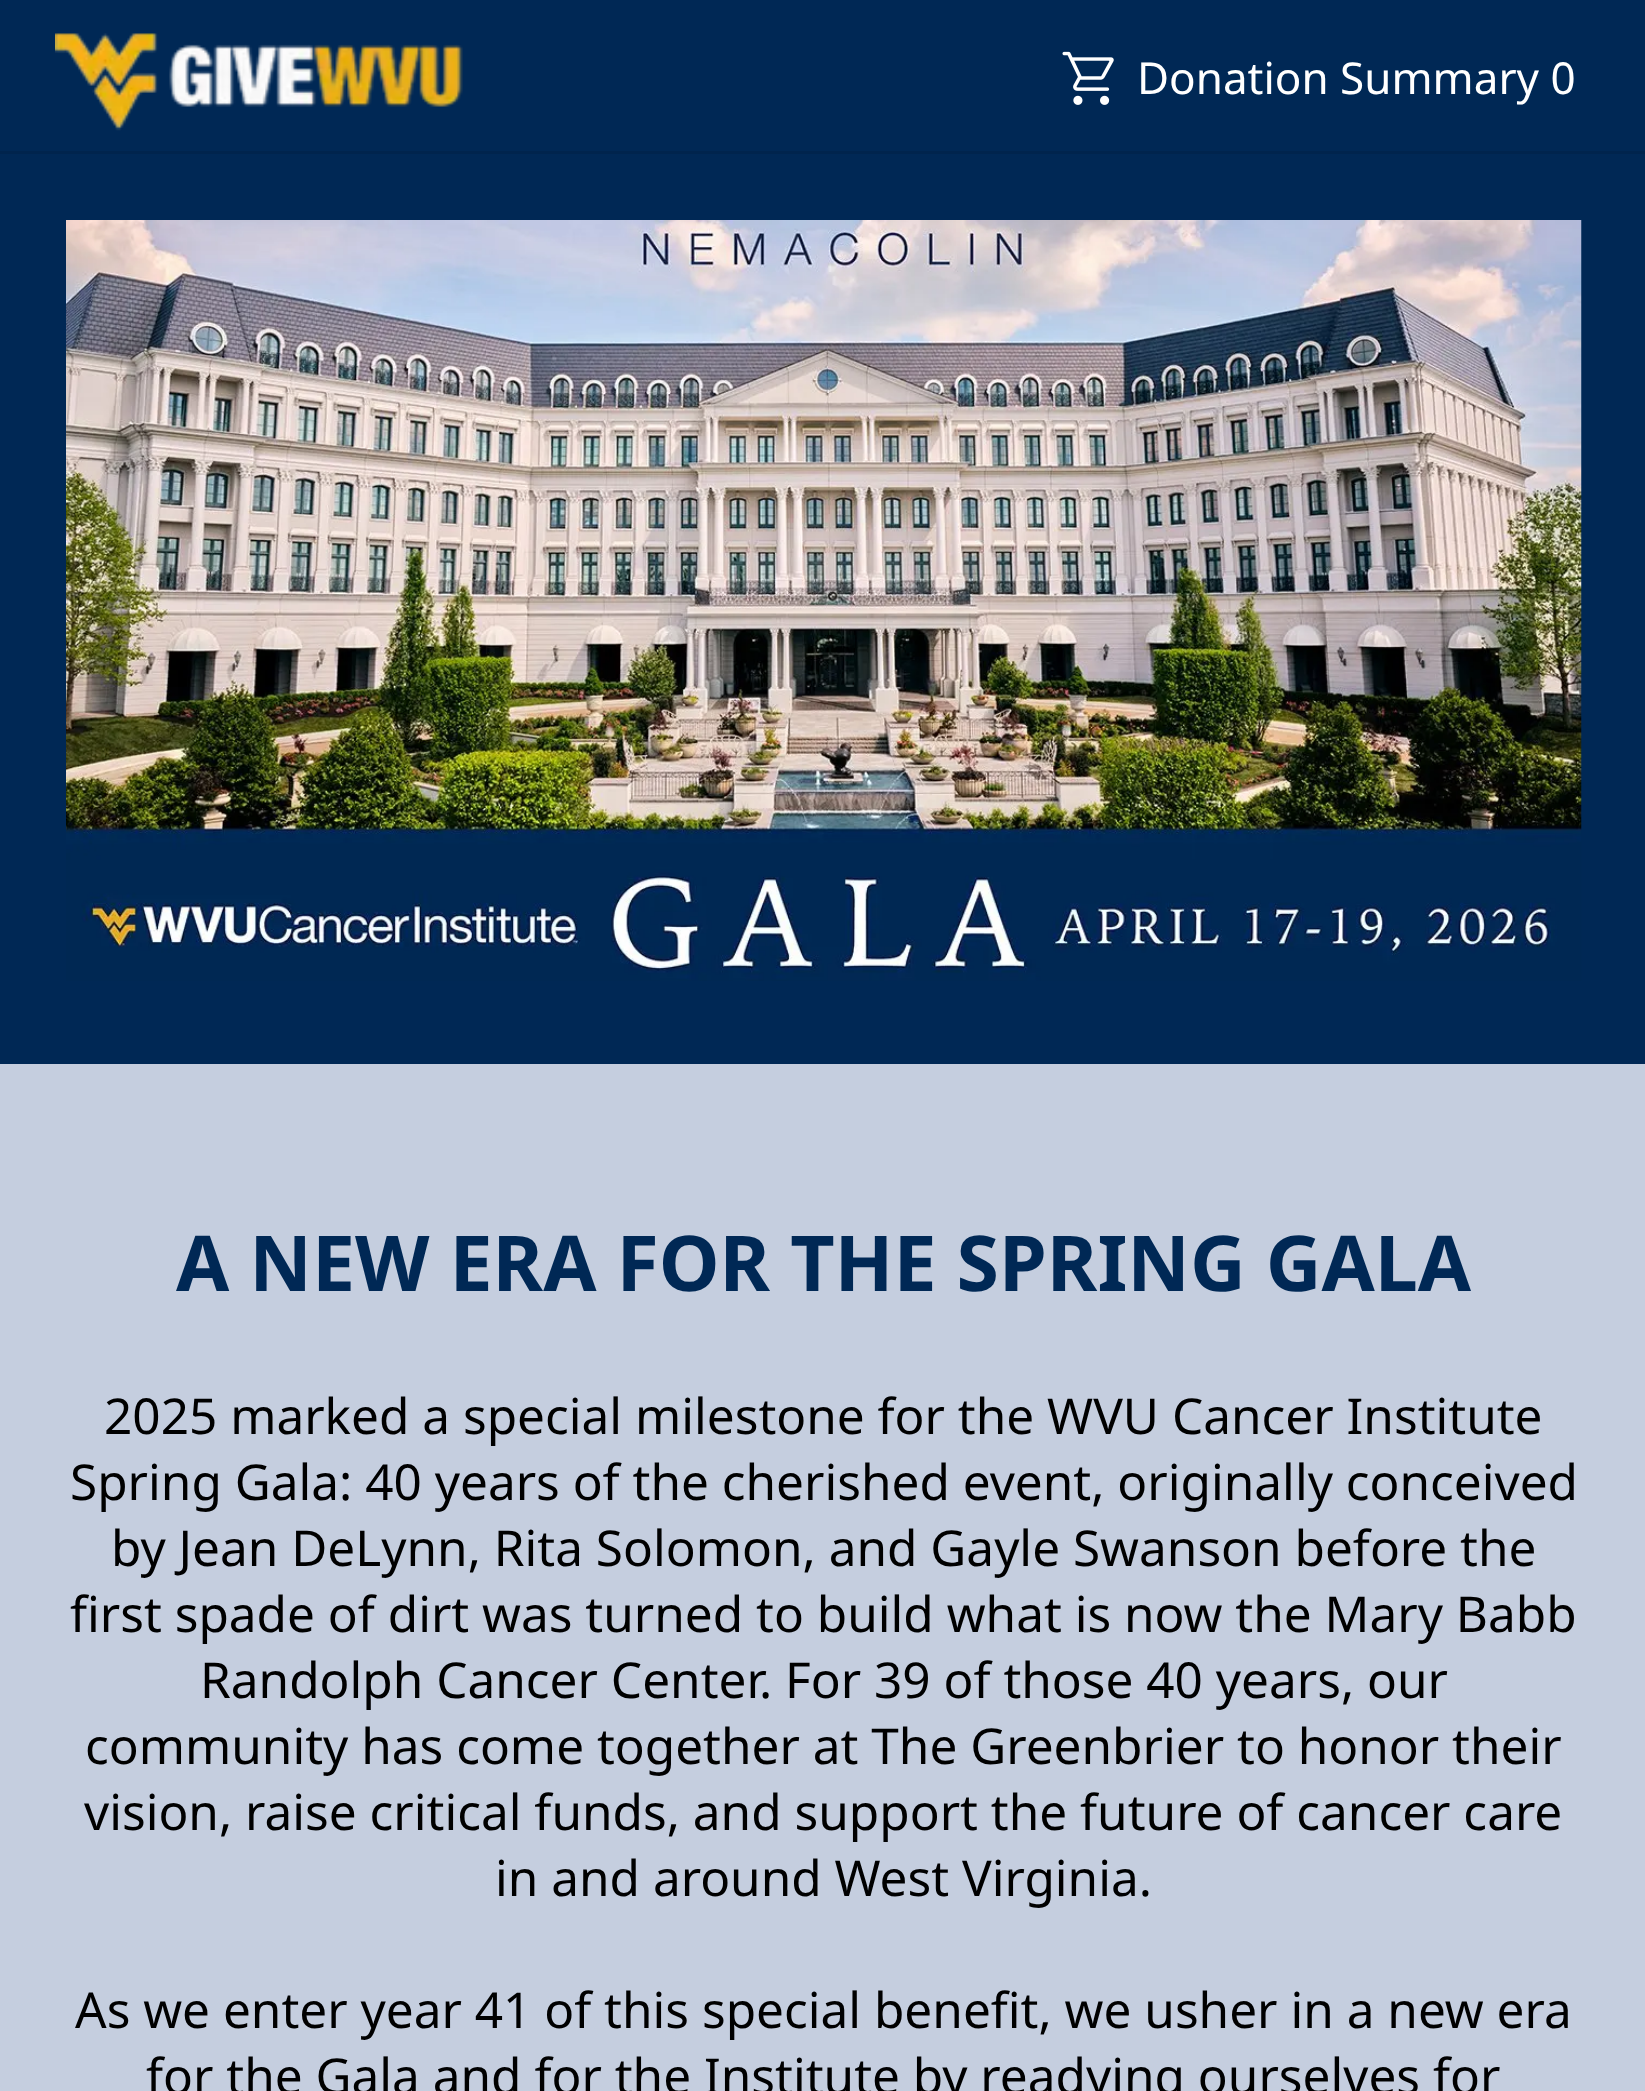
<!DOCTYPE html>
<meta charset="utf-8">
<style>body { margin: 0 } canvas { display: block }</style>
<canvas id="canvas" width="1645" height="2091"></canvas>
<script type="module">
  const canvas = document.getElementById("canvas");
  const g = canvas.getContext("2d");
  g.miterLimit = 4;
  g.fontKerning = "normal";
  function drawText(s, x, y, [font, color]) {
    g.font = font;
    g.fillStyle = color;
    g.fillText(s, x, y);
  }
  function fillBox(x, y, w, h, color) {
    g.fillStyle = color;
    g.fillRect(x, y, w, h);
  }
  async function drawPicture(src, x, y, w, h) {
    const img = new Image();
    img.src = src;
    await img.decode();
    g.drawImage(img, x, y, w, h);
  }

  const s1 = ["44px Noto Sans", "#FFFFFF"];
  const s2 = ["bold 77px Noto Sans", "#002855"];
  const s3 = ["49.5px Noto Sans", "#000000"];

  fillBox(0, 0, 1645, 2091, "#C5CEDF");
  fillBox(0, 0, 1645, 151, "#002855");
  fillBox(0, 151, 1645, 3, "#00244D");
  await drawPicture("pic1.png", 55, 33, 408, 98);
  await drawPicture("pic2.png", 1062, 51, 52, 54);
  drawText("Donation Summary 0", 1137, 94, s1);
  fillBox(0, 154, 1645, 910, "#002855");
  await drawPicture("pic3.png", 66, 220, 1516, 761);
  drawText("A NEW ERA FOR THE SPRING GALA", 176, 1291, s2);
  drawText("2025 marked a special milestone for the WVU Cancer Institute", 104, 1434, s3);
  drawText("Spring Gala: 40 years of the cherished event, originally conceived", 70, 1500, s3);
  drawText("by Jean DeLynn, Rita Solomon, and Gayle Swanson before the", 111, 1566, s3);
  drawText("first spade of dirt was turned to build what is now the Mary Babb", 70, 1632, s3);
  drawText("Randolph Cancer Center. For 39 of those 40 years, our", 200, 1698, s3);
  drawText("community has come together at The Greenbrier to honor their", 85, 1764, s3);
  drawText("vision, raise critical funds, and support the future of cancer care", 84, 1830, s3);
  drawText("in and around West Virginia.", 495, 1896, s3);
  drawText("As we enter year 41 of this special benefit, we usher in a new era", 75, 2028, s3);
  drawText("for the Gala and for the Institute by readying ourselves for", 146, 2094, s3);
</script>
